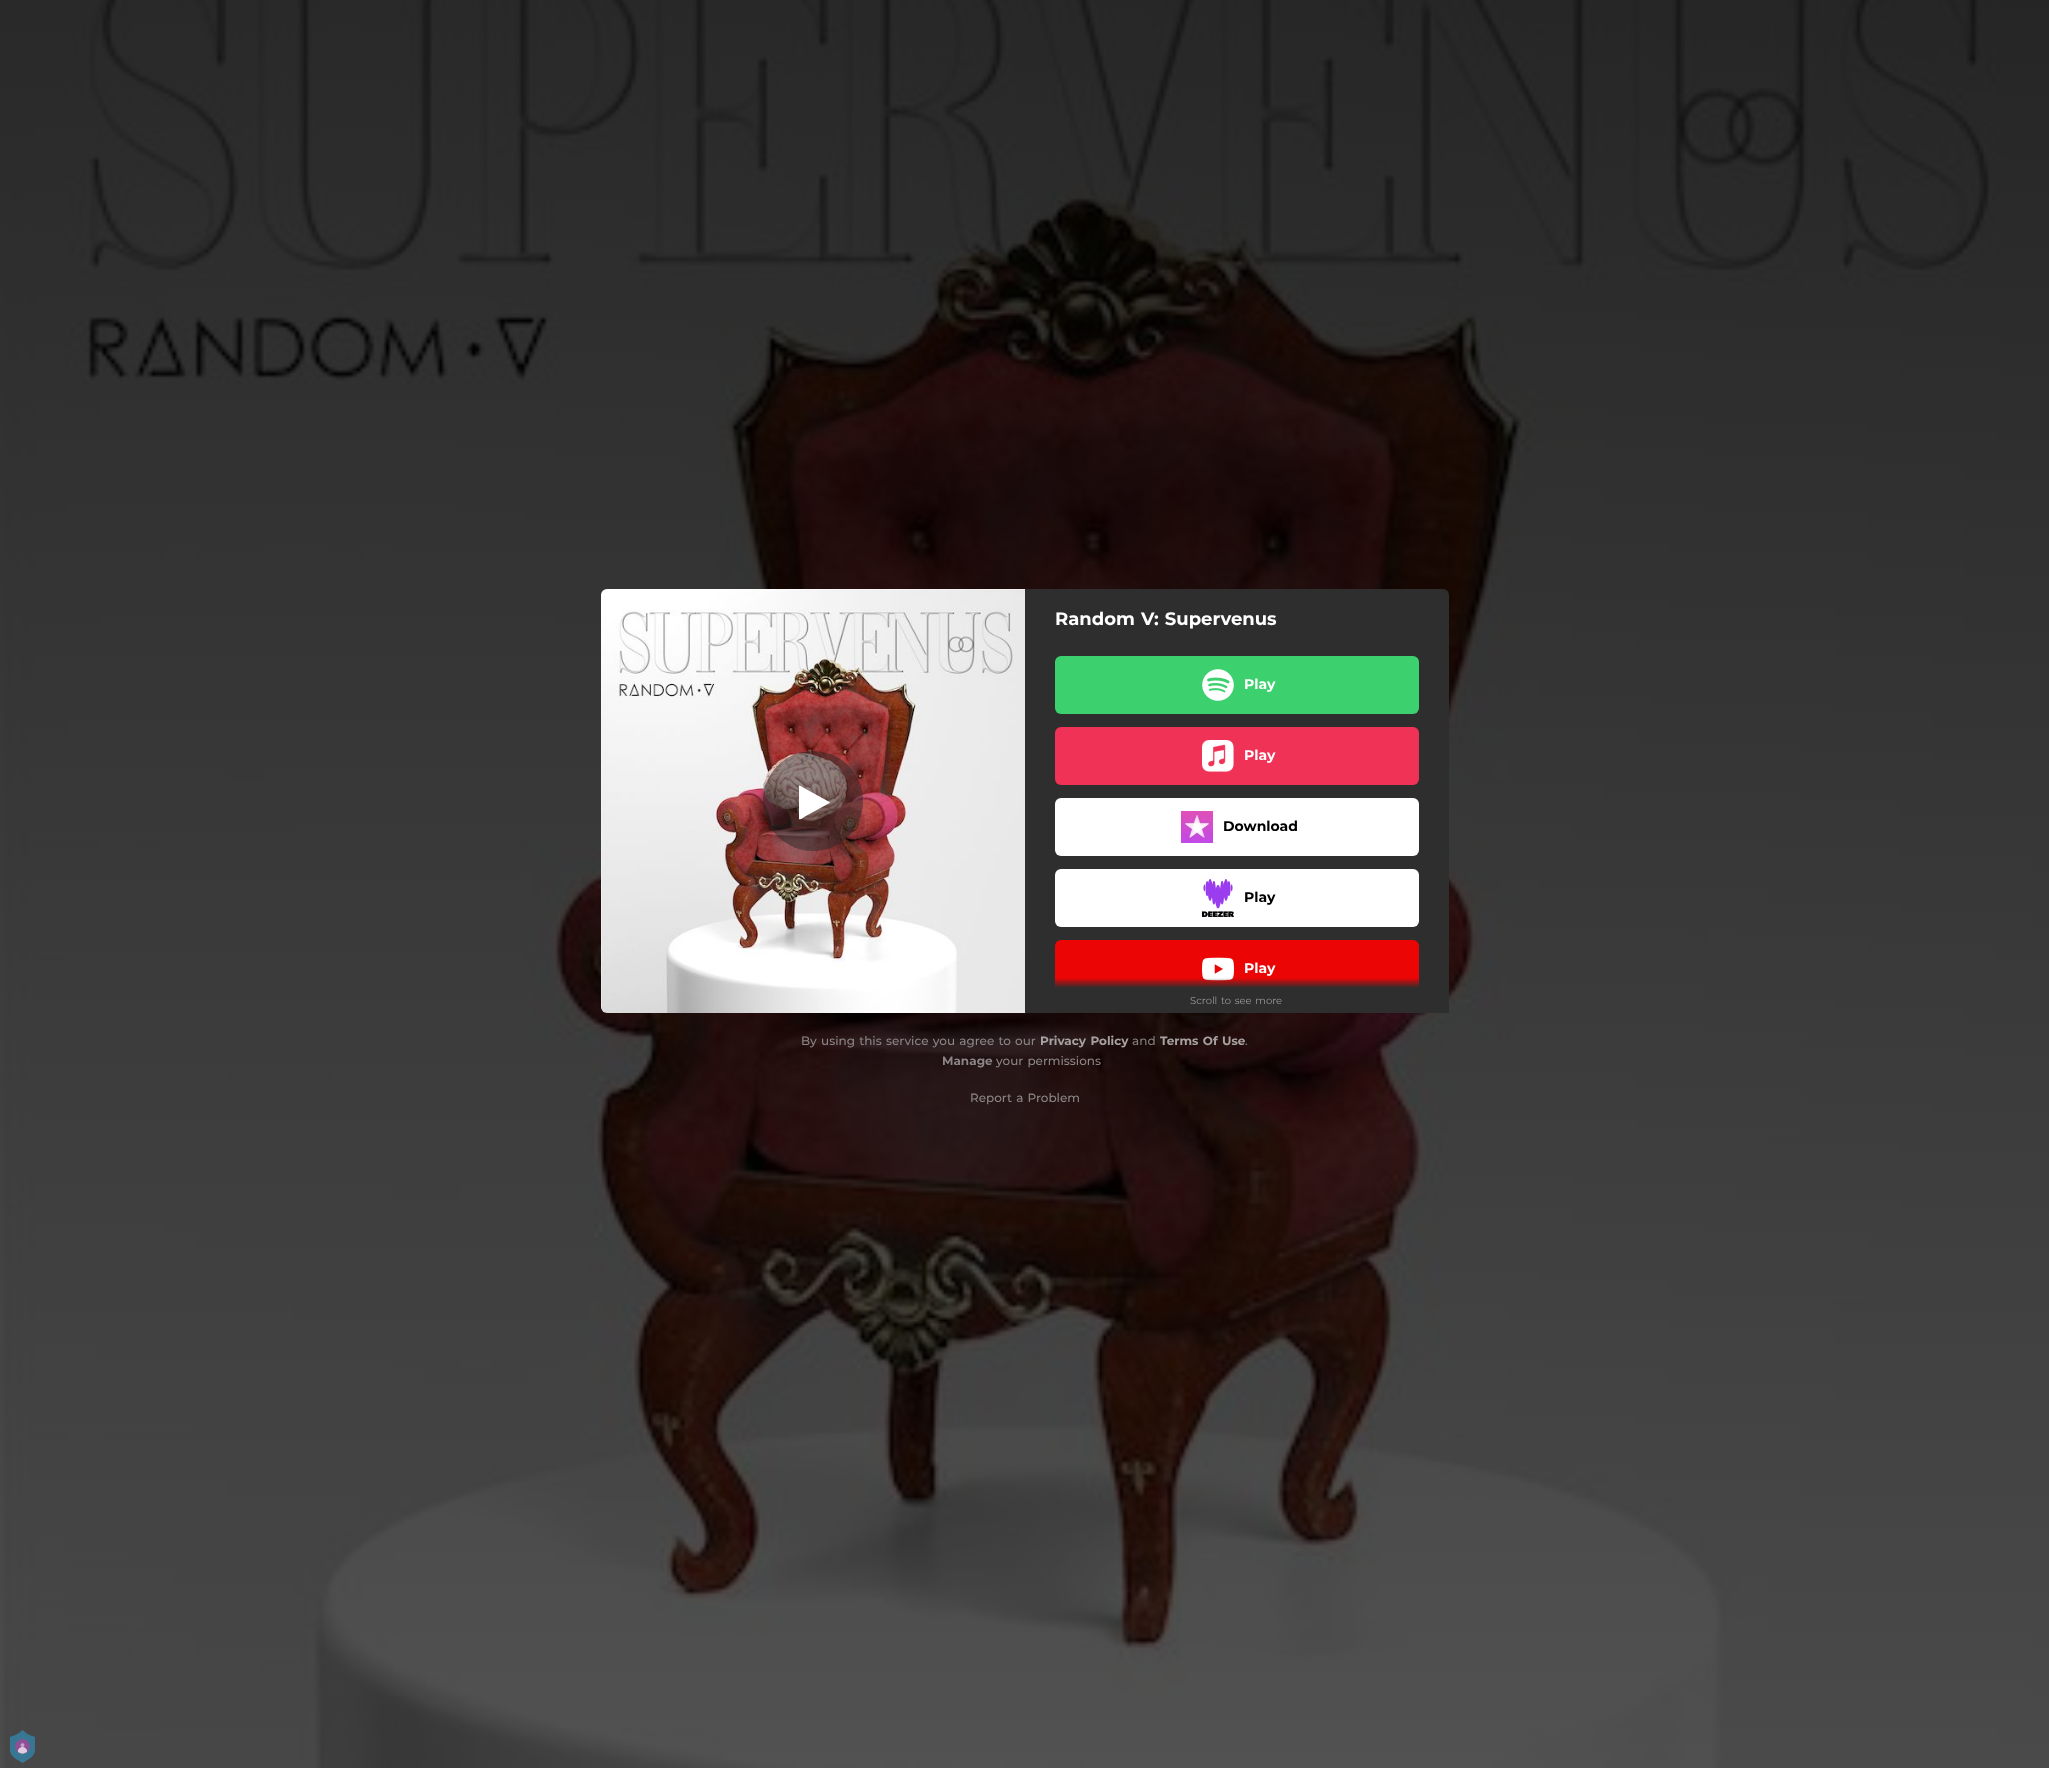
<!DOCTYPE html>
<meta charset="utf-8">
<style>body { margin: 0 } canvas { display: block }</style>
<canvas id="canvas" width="2049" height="1768"></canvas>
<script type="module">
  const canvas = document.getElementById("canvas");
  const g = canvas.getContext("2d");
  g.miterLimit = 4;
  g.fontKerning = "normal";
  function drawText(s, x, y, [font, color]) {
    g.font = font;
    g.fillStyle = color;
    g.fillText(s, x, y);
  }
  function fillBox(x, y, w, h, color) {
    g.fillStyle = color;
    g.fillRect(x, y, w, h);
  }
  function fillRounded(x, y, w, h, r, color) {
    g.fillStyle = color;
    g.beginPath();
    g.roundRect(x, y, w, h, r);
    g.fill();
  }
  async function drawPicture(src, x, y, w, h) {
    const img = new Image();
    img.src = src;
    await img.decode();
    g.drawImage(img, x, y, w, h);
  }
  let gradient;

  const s1 = ["bold 18px Montserrat", "#FFFFFF"];
  const s2 = ["bold 14px Montserrat", "#FFFFFF"];
  const s3 = ["bold 14px Montserrat", "#000000"];
  const s4 = ["10px Montserrat", "#999999"];
  const s5 = ["500 12px Montserrat", "#8B8585"];
  const s6 = ["bold 12px Montserrat", "#A7A1A1"];
  const s7 = ["500 12px Montserrat", "#847E7D"];
  const s8 = ["bold 12px Montserrat", "#8B8585"];

  fillBox(0, 0, 2049, 1768, "#FFFFFF");
  await drawPicture("pic1.png", 0, 0, 2049, 1768);
  await drawPicture("pic2.png", 601, 589, 424, 424);
  g.fillStyle = "rgba(40, 40, 40, 0.5)";
  g.beginPath();
  g.arc(813, 801, 50, 0, Math.PI * 2);
  g.fill();
  g.fillStyle = "#FFFFFF";
  g.beginPath();
  g.moveTo(829.5, 803);
  g.lineTo(805, 816.5);
  g.bezierCurveTo(804.5, 817, 800, 820.5, 799, 819);
  g.lineTo(799, 786);
  g.lineTo(799.5, 785.5);
  g.lineTo(829.5, 802);
  g.lineTo(830, 802.5);
  g.lineTo(829.5, 803);
  g.fill();
  g.fillStyle = "#2E2E2E";
  g.beginPath();
  g.roundRect(1025, 589, 424, 424, [0, 6, 6, 0]);
  g.fill();
  g.wordSpacing = "1px";
  drawText("Random V: Supervenus", 1055, 625, s1);
  fillRounded(1055, 656, 364, 58, 6, "#3CD16E");
  await drawPicture("pic3.png", 1202, 669, 32, 32);
  g.wordSpacing = "0px";
  drawText("Play", 1244, 689, s2);
  fillRounded(1055, 727, 364, 58, 6, "#EF3256");
  await drawPicture("pic4.png", 1202, 740, 32, 32);
  drawText("Play", 1244, 760, s2);
  fillRounded(1055, 798, 364, 58, 6, "#FFFFFF");
  await drawPicture("pic5.png", 1181, 811, 32, 32);
  drawText("Download", 1223, 831, s3);
  fillRounded(1055, 869, 364, 58, 6, "#FFFFFF");
  await drawPicture("pic6.png", 1202, 879, 32, 38);
  drawText("Play", 1244, 902, s3);
  fillRounded(1055, 940, 364, 58, 6, "#EB0505");
  await drawPicture("pic7.png", 1202, 957, 32, 24);
  drawText("Play", 1244, 973, s2);
  g.beginPath();
  g.roundRect(1055, 1011, 364, 2, [6, 6, 0, 0]);
  g.fill();
  gradient = g.createLinearGradient(1237, 988, 1237, 978);
  gradient.addColorStop(0, "#2E2E2E");
  gradient.addColorStop(1, "rgba(46, 46, 46, 0)");
  g.fillStyle = gradient;
  g.fillRect(1055, 978, 364, 10);
  fillBox(1055, 988, 394, 25, "#2E2E2E");
  g.wordSpacing = "1px";
  drawText("Scroll to see more", 1190, 1004, s4);
  drawText("By using this service you agree to our", 801, 1045, s5);
  drawText("Privacy Policy", 1040, 1045, s6);
  g.wordSpacing = "0px";
  drawText("and", 1132, 1045, s7);
  g.wordSpacing = "1px";
  drawText("Terms Of Use", 1160, 1045, s6);
  g.wordSpacing = "0px";
  drawText(".", 1245, 1045, s7);
  drawText("Manage", 942, 1065, s8);
  g.wordSpacing = "1px";
  drawText("your permissions", 996, 1065, s5);
  drawText("Report a Problem", 970, 1102, s5);
  await drawPicture("pic8.png", 10, 1730, 25, 33);
</script>
